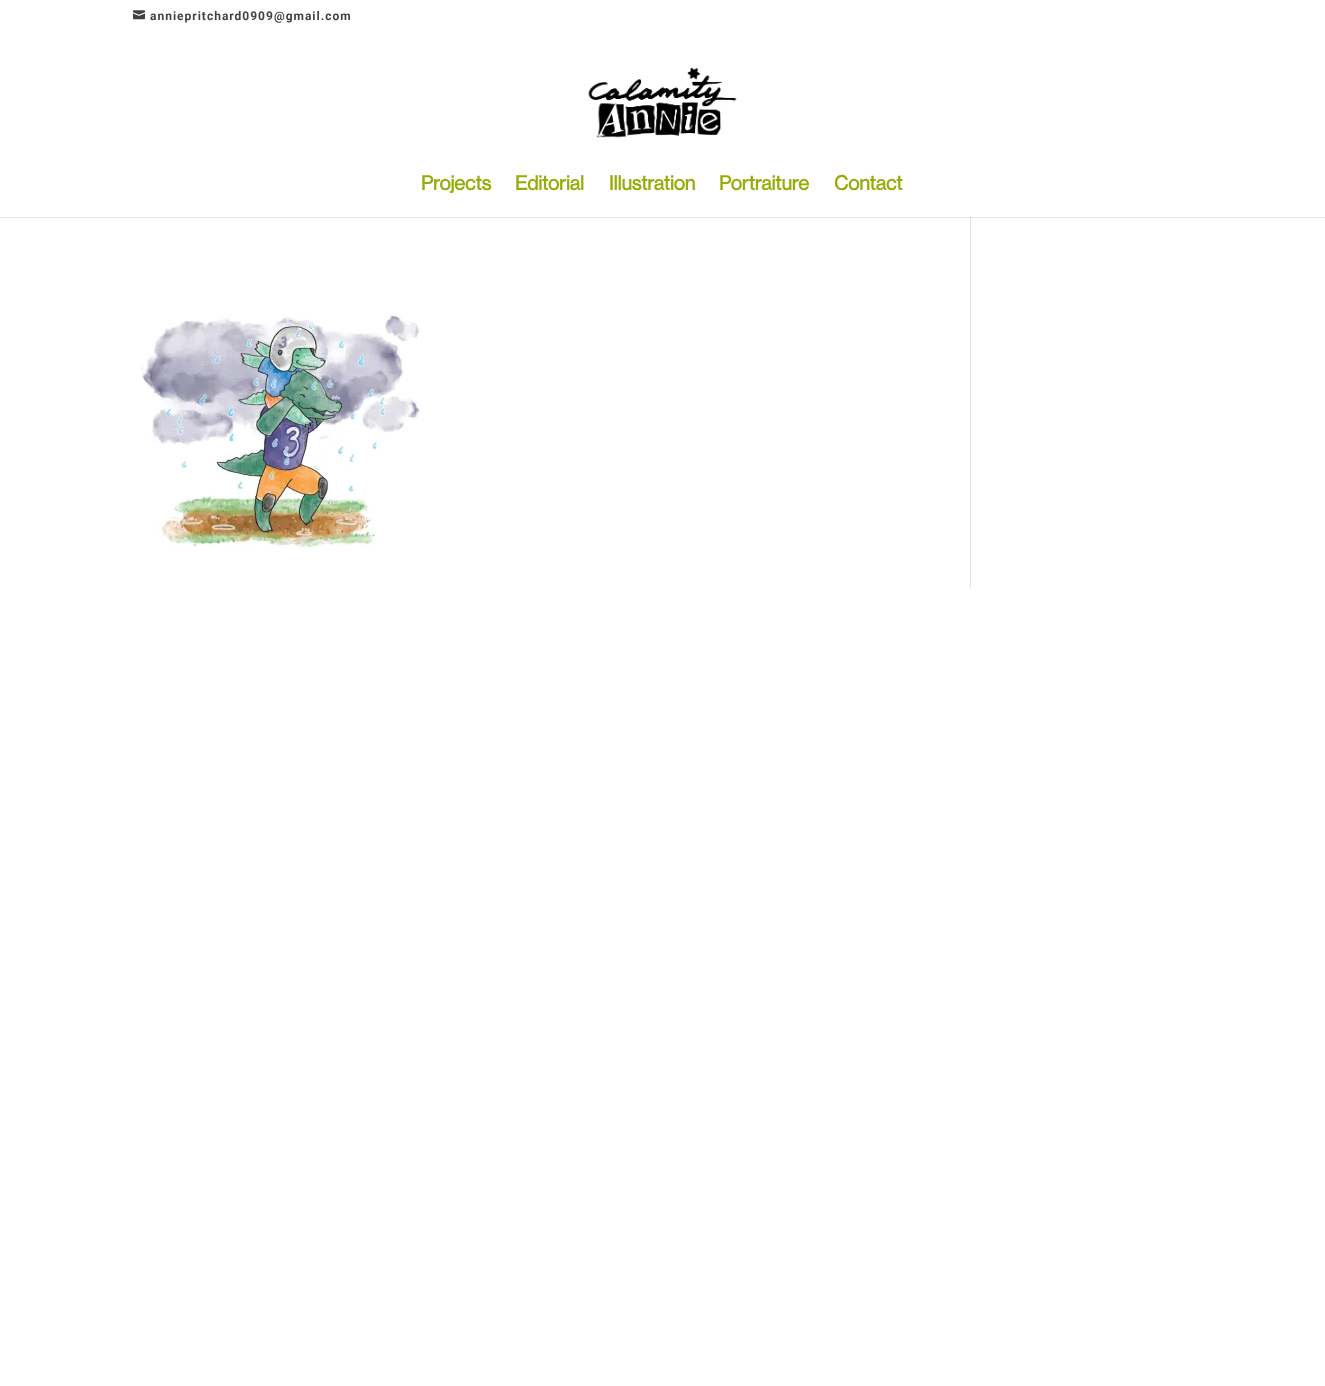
<svg xmlns="http://www.w3.org/2000/svg" xmlns:xlink="http://www.w3.org/1999/xlink" width="1325" height="1386" viewBox="0 0 1325 1386">
<style>
.cls-1{font:bold 12px Roboto;letter-spacing:1px;fill:#424242}
.cls-2{font:bold 20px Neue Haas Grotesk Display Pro;fill:#94ad08}
</style>
<rect width="100%" height="100%" fill="#ffffff"/>
<rect fill="#e6e6e6" x="0" y="217" width="1325" height="1"/>
<image xlink:href="image0.png" x="133" y="10" width="12" height="10"/>
<image xlink:href="image1.png" x="588" y="67" width="149" height="71"/>
<image xlink:href="image2.png" x="141" y="315" width="280" height="234"/>
<rect fill="#e2e2e2" x="970" y="217" width="1" height="371"/>
<rect fill="#cbcbcb" x="970" y="217" width="1" height="1"/>
<text class="cls-1" x="150" y="20">anniepritchard0909@gmail.com</text>
<text class="cls-2" x="421" y="190">Projects</text>
<text class="cls-2" x="515" y="190">Editorial</text>
<text class="cls-2" x="609" y="190">Illustration</text>
<text class="cls-2" x="719" y="190">Portraiture</text>
<text class="cls-2" x="834" y="190">Contact</text>
</svg>
